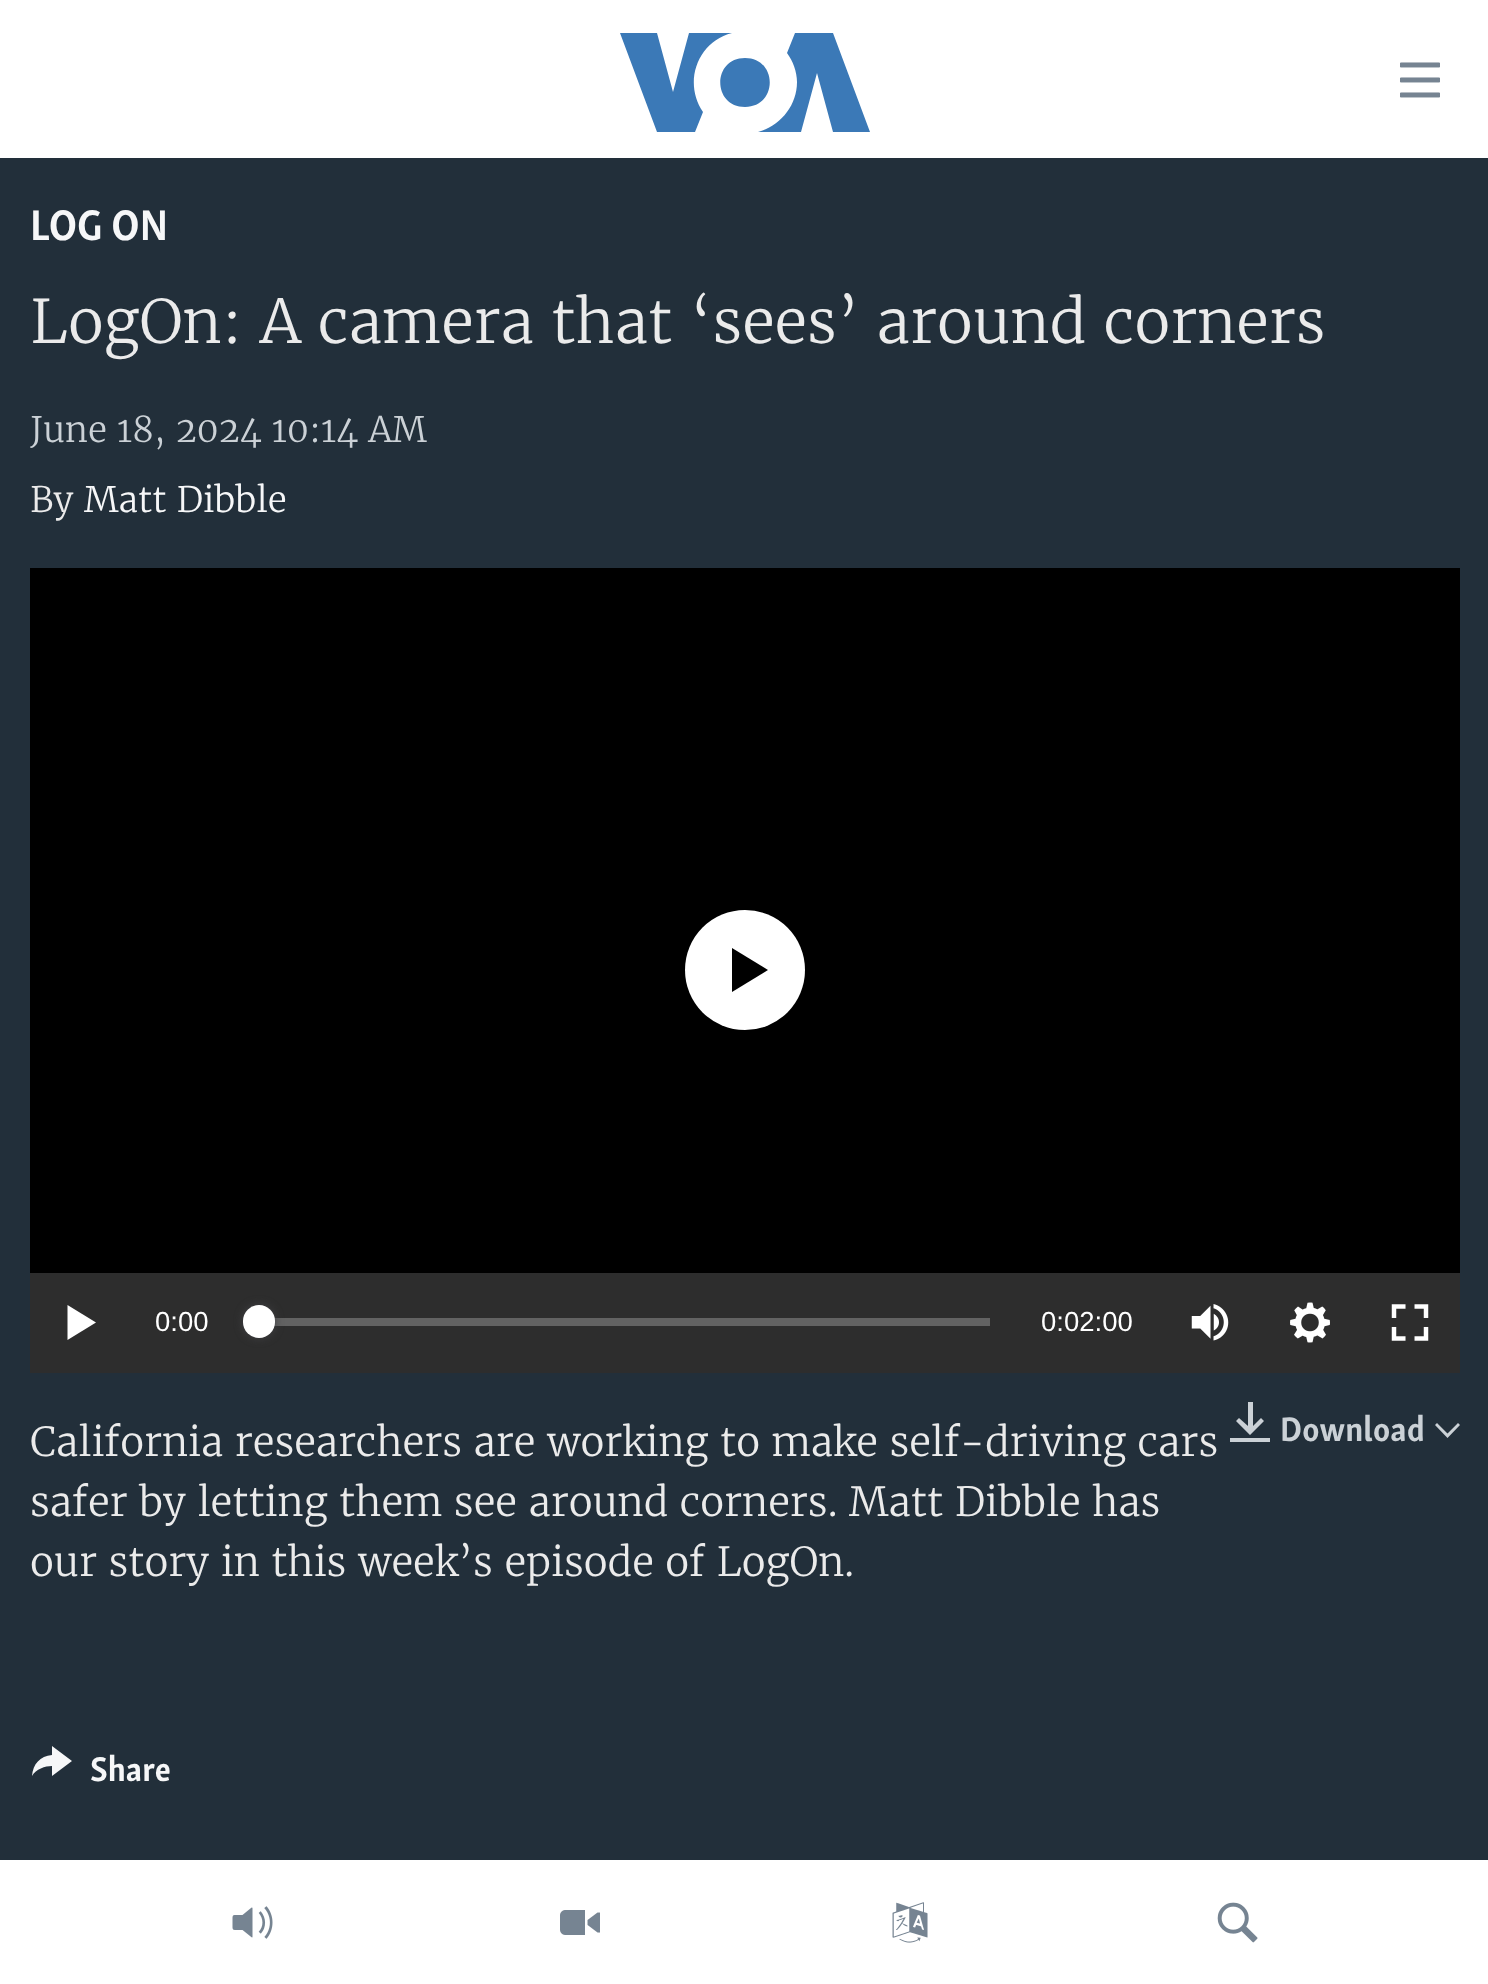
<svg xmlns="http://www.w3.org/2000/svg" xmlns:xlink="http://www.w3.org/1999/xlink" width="1488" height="1984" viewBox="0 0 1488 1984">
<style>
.cls-1{font:bold 44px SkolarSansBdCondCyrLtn;fill:#f6f7f8}
.cls-2{font:300 60px Merriweather;fill:#ebebeb}
.cls-3{font:300 35px Merriweather;fill:#cbd1d6}
.cls-4{font:300 35px Merriweather;fill:#ebebeb}
.cls-5{font:300 35px Merriweather;fill:#f6f7f8}
.cls-6{font:27.5px Liberation Sans;fill:#ffffff}
.cls-7{font:300 40px Merriweather;fill:#ebebeb}
.cls-8{font:bold 35px SkolarSansBdCondCyrLtn;fill:#cbd1d6}
.cls-9{font:bold 35px SkolarSansBdCondCyrLtn;fill:#f6f7f8}
</style>
<rect width="100%" height="100%" fill="#222f3a"/>
<rect fill="#ffffff" x="0" y="0" width="1488" height="158"/>
<path fill="#3b79b7" d="M703 112L695 132H657L620 33H657L673 92L689 33H732C697 42 683 83 703 112ZM745 58C712 58 712 107 745 107C778 107 778 58 745 58ZM797 82C797 106 780 126 758 132H801L817 73L833 132H870L833 33H795L787 53C793 61 797 72 797 82Z"/>
<image xlink:href="image0.png" x="1400" y="62" width="40" height="36"/>
<rect fill="#ffffff" x="0" y="1860" width="1488" height="124"/>
<image xlink:href="image1.png" x="232" y="1906" width="41" height="33"/>
<image xlink:href="image2.png" x="560" y="1910" width="40" height="25"/>
<image xlink:href="image3.png" x="892" y="1902" width="36" height="41"/>
<image xlink:href="image4.png" x="1217" y="1902" width="41" height="41"/>
<rect fill="#000000" x="30" y="568" width="1430" height="705"/>
<circle fill="#ffffff" cx="745" cy="970" r="60"/>
<path fill="#000000" d="M732 992L768 970L732 948Z"/>
<rect fill="#2d2d2d" x="30" y="1273" width="1430" height="100"/>
<path fill="#ffffff" d="M67.5 1340L96 1322.5L67.5 1305Z"/>
<rect fill="#626262" x="274" y="1318" width="716" height="8"/>
<rect fill="#414144" filter="blur(4px)" x="243" y="1305" width="32" height="33" rx="16"/>
<rect fill="#ffffff" x="243" y="1305" width="32" height="33" rx="16"/>
<image xlink:href="image5.png" x="1191" y="1304" width="38" height="37"/>
<image xlink:href="image6.png" x="1290" y="1302" width="40" height="41"/>
<image xlink:href="image7.png" x="1391" y="1304" width="38" height="37"/>
<path fill="#cbd1d6" d="M1270 1438V1442H1230V1438ZM1264 1421L1261 1418L1253 1426V1402H1248V1426L1239 1418L1236 1421L1250 1435Z"/>
<path fill="#cbd1d6" d="M1435 1425L1447.5 1438L1460 1425L1458 1423L1447.5 1433.5L1437 1423Z"/>
<path fill="#f6f7f8" d="M32 1776C33 1764 40 1756 52 1755V1746L72 1761L52 1776V1766C45 1766 36 1769 32 1776Z"/>
<text class="cls-1" x="30" y="240">LOG ON</text>
<text class="cls-2" x="30" y="343">LogOn: A camera that ‘sees’ around corners</text>
<text class="cls-3" x="30" y="442">June 18, 2024 10:14 AM</text>
<text class="cls-4" x="30" y="512">By</text>
<text class="cls-5" x="84" y="512">Matt Dibble</text>
<text class="cls-6" x="155" y="1331">0:00</text>
<text class="cls-6" x="1041" y="1331">0:02:00</text>
<text class="cls-7"><tspan x="30" y="1456">California researchers are working to make self-driving cars</tspan><tspan x="30" y="1516">safer by letting them see around corners. Matt Dibble has</tspan><tspan x="30" y="1576">our story in this week’s episode of LogOn.</tspan></text>
<text class="cls-8" x="1280" y="1441">Download</text>
<text class="cls-9" x="90" y="1781">Share</text>
</svg>
